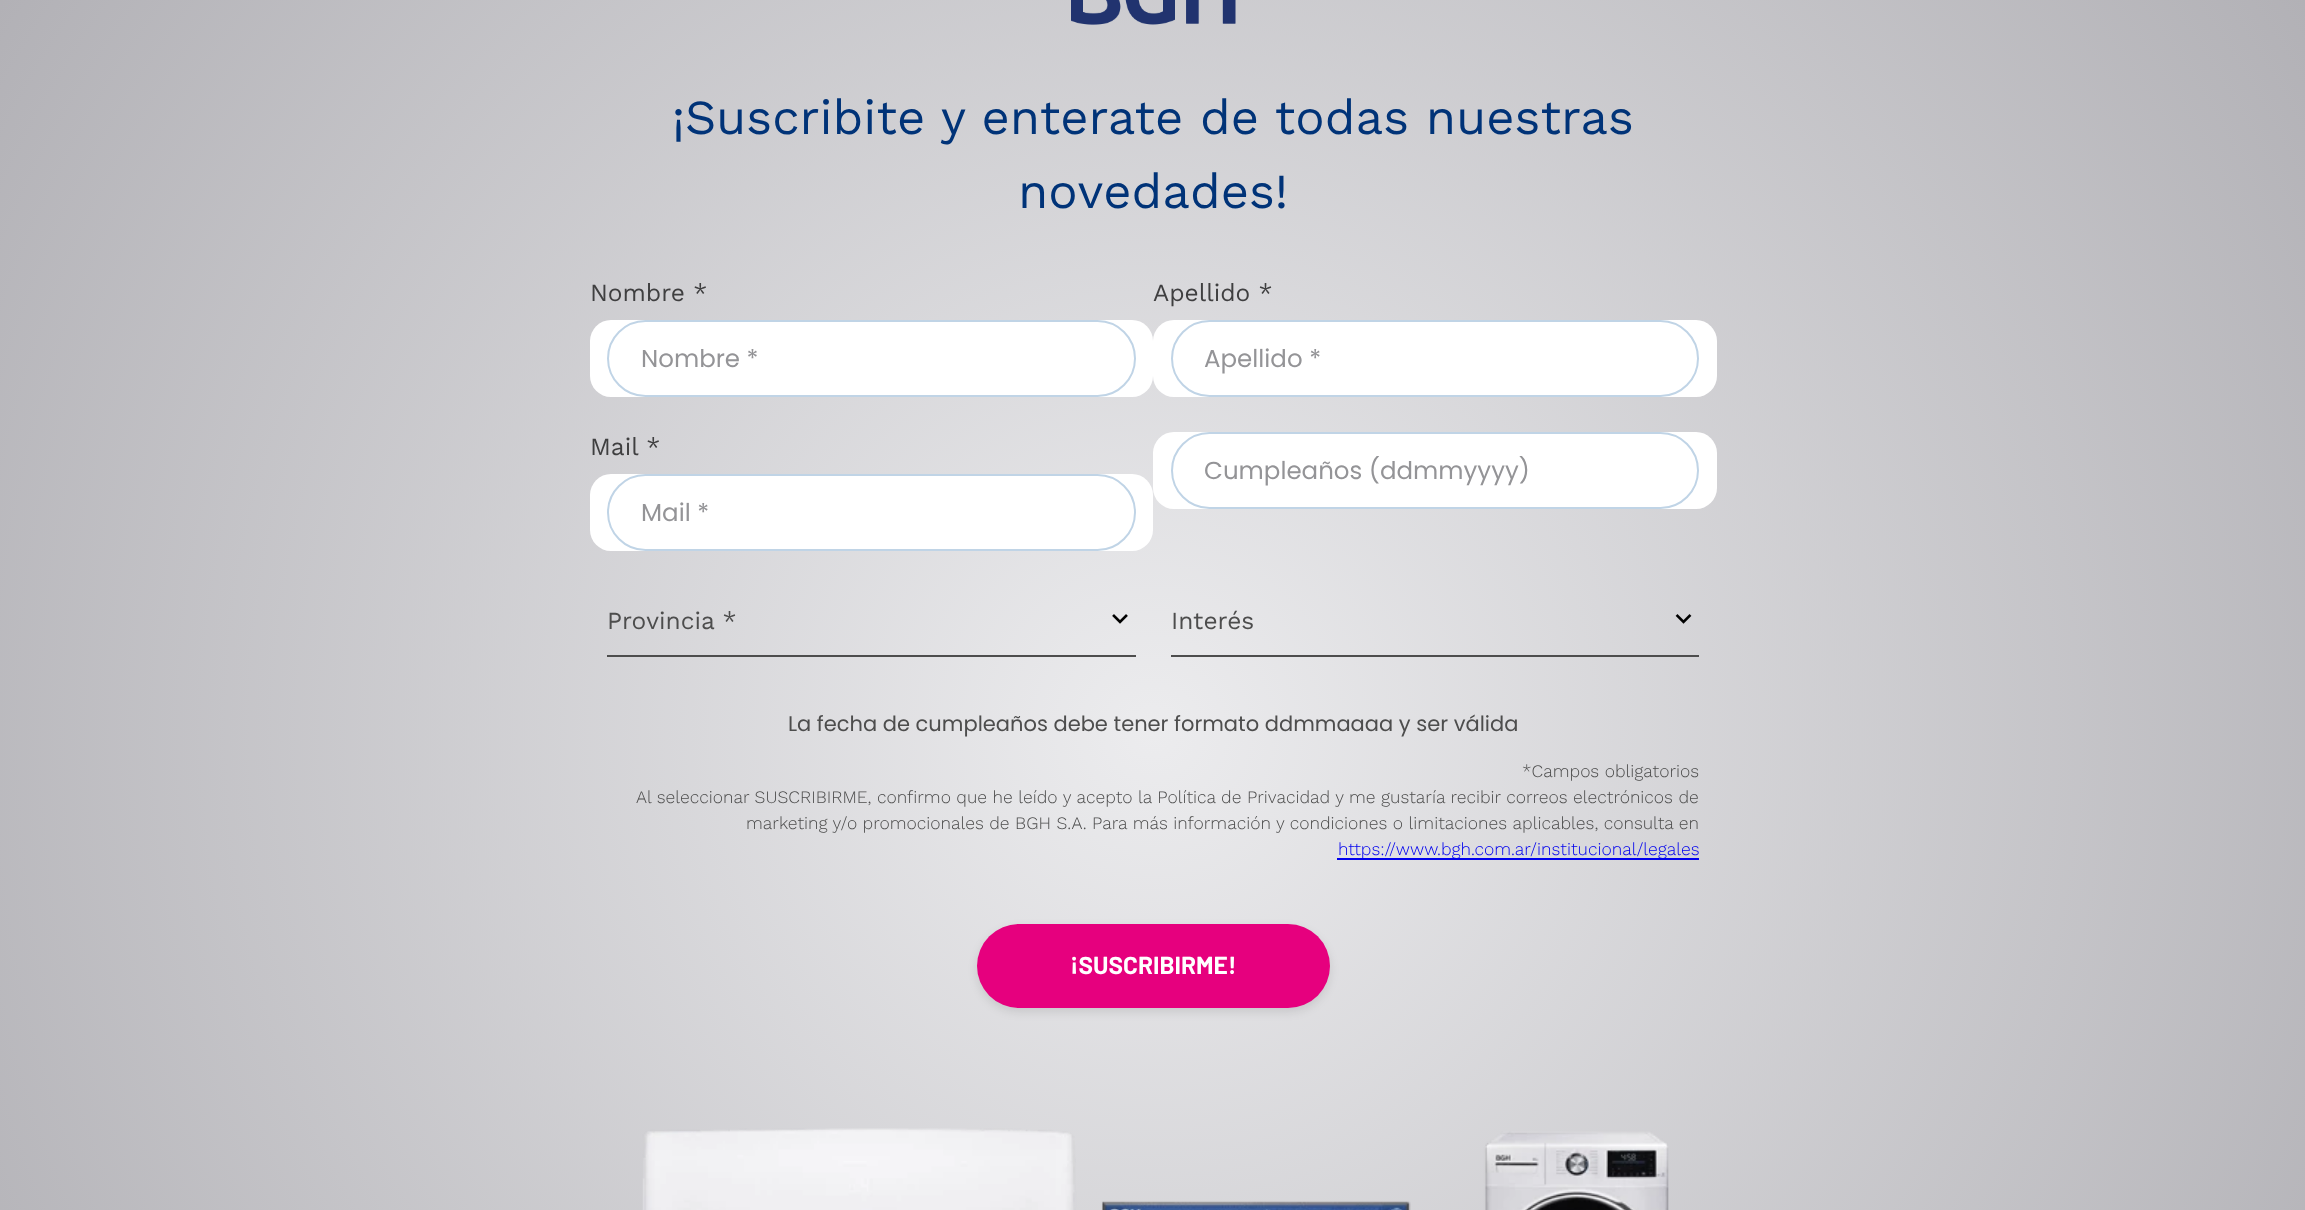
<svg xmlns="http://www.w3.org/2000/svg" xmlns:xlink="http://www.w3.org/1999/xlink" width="2305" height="1210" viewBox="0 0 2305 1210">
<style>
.cls-1{font:49px Work Sans;fill:#003378}
.cls-2{font:24.5px Work Sans;fill:#3f3f40}
.cls-3{font:24.5px Poppins;fill:#949497}
.cls-4{font:24.5px Work Sans;fill:#4d4d4d}
.cls-5{font:21px Poppins;fill:#4d4d4d}
.cls-6{font:300 17.5px Work Sans;fill:#4d4d4d}
.cls-7{font:300 17.5px Work Sans;fill:#0000ee}
.cls-8{font:bold 24.5px Barlow;fill:#ffffff}
</style>
<defs>
<radialGradient id="g1" gradientUnits="userSpaceOnUse" cx="1153" cy="732" r="1388"><stop offset="0" stop-color="#ececee"/><stop offset="1" stop-color="#b1b0b5"/></radialGradient>
</defs>
<rect width="100%" height="100%" fill="#ffffff"/>
<rect fill="url(#g1)" x="0" y="0" width="2305" height="1210"/>
<image xlink:href="image0.png" x="1071" y="0" width="165" height="25"/>
<rect fill="#ffffff" x="590" y="320" width="563" height="77" rx="21"/>
<rect fill="none" stroke="#c0d4e6" stroke-width="2" x="608" y="321" width="527" height="75" rx="37.5"/>
<rect fill="#ffffff" x="1153" y="320" width="564" height="77" rx="21"/>
<rect fill="none" stroke="#c0d4e6" stroke-width="2" x="1172" y="321" width="526" height="75" rx="37.5"/>
<rect fill="#ffffff" x="590" y="474" width="563" height="77" rx="21"/>
<rect fill="none" stroke="#c0d4e6" stroke-width="2" x="608" y="475" width="527" height="75" rx="37.5"/>
<rect fill="#ffffff" x="1153" y="432" width="564" height="77" rx="21"/>
<rect fill="none" stroke="#c0d4e6" stroke-width="2" x="1172" y="433" width="526" height="75" rx="37.5"/>
<rect fill="#4d4d4d" x="607" y="655" width="529" height="2"/>
<image xlink:href="image1.png" x="1112" y="614" width="16" height="10"/>
<rect fill="#4d4d4d" x="1171" y="655" width="528" height="2"/>
<image xlink:href="image2.png" x="1675" y="614" width="17" height="10"/>
<rect fill="#0000ee" x="1337" y="858" width="362" height="2"/>
<rect fill="#000000" fill-opacity="0.1" filter="blur(5px)" x="977" y="928" width="353" height="84" rx="42"/>
<rect fill="#e6007e" x="977" y="924" width="353" height="84" rx="42"/>
<image xlink:href="image3.png" x="642" y="1128" width="1027" height="82"/>
<text class="cls-1" x="672" y="134">¡Suscribite y enterate de todas nuestras</text>
<text class="cls-1" x="1018" y="208">novedades!</text>
<text class="cls-2" x="590" y="301">Nombre *</text>
<text class="cls-3" x="641" y="367">Nombre *</text>
<text class="cls-2" x="1153" y="301">Apellido *</text>
<text class="cls-3" x="1204" y="367">Apellido *</text>
<text class="cls-2" x="590" y="455">Mail *</text>
<text class="cls-3" x="641" y="521">Mail *</text>
<text class="cls-3" x="1204" y="479">Cumpleaños (ddmmyyyy)</text>
<text class="cls-4" x="607" y="629">Provincia *</text>
<text class="cls-4" x="1171" y="629">Interés</text>
<text class="cls-5" x="788" y="731">La fecha de cumpleaños debe tener formato ddmmaaaa y ser válida</text>
<text class="cls-6" x="1522" y="777">*Campos obligatorios</text>
<text class="cls-6" x="636" y="803">Al seleccionar SUSCRIBIRME, confirmo que he leído y acepto la Política de Privacidad y me gustaría recibir correos electrónicos de</text>
<text class="cls-6" x="746" y="829">marketing y/o promocionales de BGH S.A. Para más información y condiciones o limitaciones aplicables, consulta en</text>
<text class="cls-7" x="1338" y="855">https://www.bgh.com.ar/institucional/legales</text>
<text class="cls-8" x="1070" y="974">¡SUSCRIBIRME!</text>
</svg>
